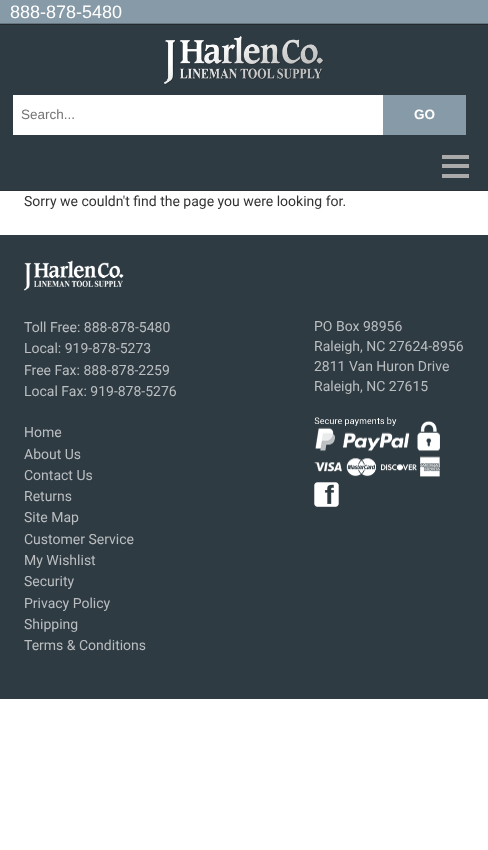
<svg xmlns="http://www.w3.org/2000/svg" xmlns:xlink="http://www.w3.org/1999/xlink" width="488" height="850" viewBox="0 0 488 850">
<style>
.cls-1{font:18px Liberation Sans;fill:#ffffff}
.cls-2{font:13.5px Liberation Sans;fill:#757575}
.cls-3{font:bold 13.5px Liberation Sans;fill:#ffffff}
.cls-4{font:14px Roboto;fill:#333333}
.cls-5{font:14px Roboto;fill:#babec1}
</style>
<defs>
<linearGradient id="g1" gradientUnits="userSpaceOnUse" x1="244" y1="0" x2="244" y2="25"><stop offset="0.92" stop-color="#879aa7"/><stop offset="0.99" stop-color="#15181a"/></linearGradient>
</defs>
<rect width="100%" height="100%" fill="#ffffff"/>
<rect fill="url(#g1)" x="0" y="0" width="488" height="25"/>
<rect fill="#2f3b42" x="0" y="25" width="488" height="165"/>
<image xlink:href="image0.png" x="164" y="36" width="160" height="49"/>
<rect fill="#ffffff" x="13" y="95" width="370" height="40"/>
<rect fill="#879aa7" x="383" y="95" width="83" height="40"/>
<rect fill="#2b3337" x="0" y="190" width="488" height="1"/>
<rect fill="#aaaaaa" x="442" y="174" width="27" height="4"/>
<rect fill="#aaaaaa" x="442" y="164" width="27" height="4"/>
<rect fill="#aaaaaa" x="442" y="155" width="27" height="4"/>
<rect fill="#2f3b42" x="0" y="235" width="488" height="464"/>
<image xlink:href="image1.png" x="24" y="260" width="100" height="31"/>
<image xlink:href="image2.png" x="314" y="417" width="126" height="60"/>
<image xlink:href="image3.png" x="314" y="482" width="25" height="25"/>
<text class="cls-1" x="10" y="18">888-878-5480</text>
<text class="cls-2" x="21" y="119">Search...</text>
<text class="cls-3" x="414" y="119">GO</text>
<text class="cls-4" x="24" y="206">Sorry we couldn't find the page you were looking for.</text>
<text class="cls-5"><tspan x="24" y="332">Toll Free: 888-878-5480</tspan><tspan x="24" y="353">Local: 919-878-5273</tspan><tspan x="24" y="375">Free Fax: 888-878-2259</tspan><tspan x="24" y="396">Local Fax: 919-878-5276</tspan></text>
<text class="cls-5"><tspan x="24" y="437">Home</tspan><tspan x="24" y="459">About Us</tspan><tspan x="24" y="480">Contact Us</tspan><tspan x="24" y="501">Returns</tspan><tspan x="24" y="522">Site Map</tspan><tspan x="24" y="544">Customer Service</tspan><tspan x="24" y="565">My Wishlist</tspan><tspan x="24" y="586">Security</tspan><tspan x="24" y="608">Privacy Policy</tspan><tspan x="24" y="629">Shipping</tspan><tspan x="24" y="650">Terms &amp; Conditions</tspan></text>
<text class="cls-5"><tspan x="314" y="331">PO Box 98956</tspan><tspan x="314" y="351">Raleigh, NC 27624-8956</tspan><tspan x="314" y="371">2811 Van Huron Drive</tspan><tspan x="314" y="391">Raleigh, NC 27615</tspan></text>
</svg>
